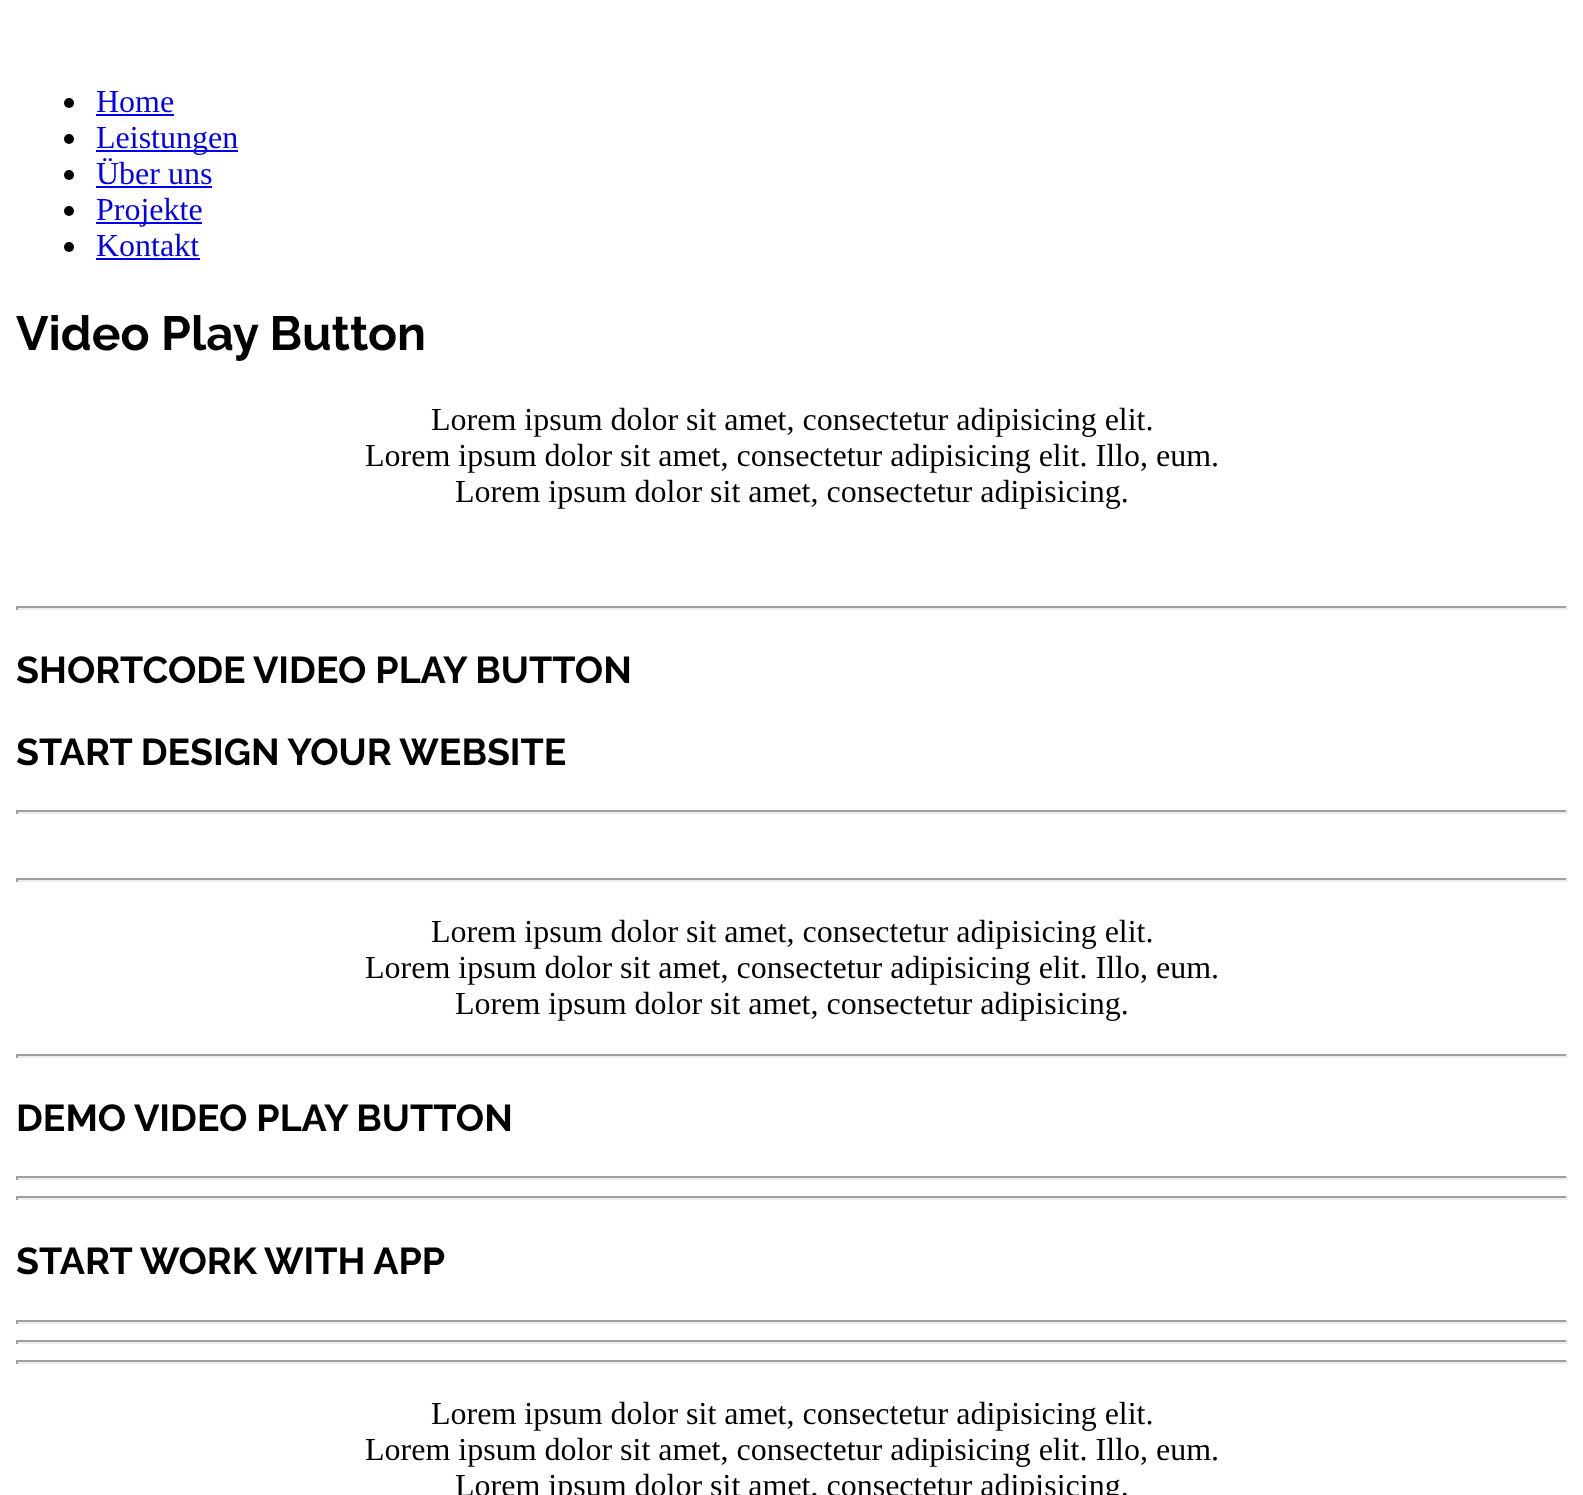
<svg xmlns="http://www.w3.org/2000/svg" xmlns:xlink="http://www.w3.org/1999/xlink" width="1583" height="1495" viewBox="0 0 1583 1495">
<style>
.cls-1{font:32px Liberation Serif;fill:#0000ee}
.cls-2{font:bold 48px Raleway;fill:#000000}
.cls-3{font:32px Liberation Serif;fill:#000000}
.cls-4{font:bold 37.5px Raleway;fill:#000000}
</style>
<rect width="100%" height="100%" fill="#ffffff"/>
<circle fill="#000000" cx="69" cy="103" r="5"/>
<rect fill="#0000ee" x="96" y="114" width="78" height="2"/>
<circle fill="#000000" cx="69" cy="139" r="5"/>
<rect fill="#0000ee" x="96" y="150" width="142" height="2"/>
<circle fill="#000000" cx="69" cy="175" r="5"/>
<rect fill="#0000ee" x="96" y="186" width="116" height="2"/>
<circle fill="#000000" cx="69" cy="211" r="5"/>
<rect fill="#0000ee" x="96" y="222" width="106" height="2"/>
<circle fill="#000000" cx="69" cy="247" r="5"/>
<rect fill="#0000ee" x="96" y="258" width="104" height="2"/>
<rect fill="#9f9f9f" x="16" y="606" width="1552" height="2"/>
<rect fill="#eeeeee" x="1566" y="606" width="2" height="4"/>
<rect fill="#eeeeee" x="16" y="608" width="1552" height="2"/>
<rect fill="#9f9f9f" x="16" y="606" width="2" height="4"/>
<rect fill="#9f9f9f" x="16" y="810" width="1552" height="2"/>
<rect fill="#eeeeee" x="1566" y="810" width="2" height="4"/>
<rect fill="#eeeeee" x="16" y="812" width="1552" height="2"/>
<rect fill="#9f9f9f" x="16" y="810" width="2" height="4"/>
<rect fill="#9f9f9f" x="16" y="878" width="1552" height="2"/>
<rect fill="#eeeeee" x="1566" y="878" width="2" height="4"/>
<rect fill="#eeeeee" x="16" y="880" width="1552" height="2"/>
<rect fill="#9f9f9f" x="16" y="878" width="2" height="4"/>
<rect fill="#9f9f9f" x="16" y="1054" width="1552" height="2"/>
<rect fill="#eeeeee" x="1566" y="1054" width="2" height="4"/>
<rect fill="#eeeeee" x="16" y="1056" width="1552" height="2"/>
<rect fill="#9f9f9f" x="16" y="1054" width="2" height="4"/>
<rect fill="#9f9f9f" x="16" y="1176" width="1552" height="2"/>
<rect fill="#eeeeee" x="1566" y="1176" width="2" height="4"/>
<rect fill="#eeeeee" x="16" y="1178" width="1552" height="2"/>
<rect fill="#9f9f9f" x="16" y="1176" width="2" height="4"/>
<rect fill="#9f9f9f" x="16" y="1196" width="1552" height="2"/>
<rect fill="#eeeeee" x="1566" y="1196" width="2" height="4"/>
<rect fill="#eeeeee" x="16" y="1198" width="1552" height="2"/>
<rect fill="#9f9f9f" x="16" y="1196" width="2" height="4"/>
<rect fill="#9f9f9f" x="16" y="1320" width="1552" height="2"/>
<rect fill="#eeeeee" x="1566" y="1320" width="2" height="4"/>
<rect fill="#eeeeee" x="16" y="1322" width="1552" height="2"/>
<rect fill="#9f9f9f" x="16" y="1320" width="2" height="4"/>
<rect fill="#9f9f9f" x="16" y="1340" width="1552" height="2"/>
<rect fill="#eeeeee" x="1566" y="1340" width="2" height="4"/>
<rect fill="#eeeeee" x="16" y="1342" width="1552" height="2"/>
<rect fill="#9f9f9f" x="16" y="1340" width="2" height="4"/>
<rect fill="#9f9f9f" x="16" y="1360" width="1552" height="2"/>
<rect fill="#eeeeee" x="1566" y="1360" width="2" height="4"/>
<rect fill="#eeeeee" x="16" y="1362" width="1552" height="2"/>
<rect fill="#9f9f9f" x="16" y="1360" width="2" height="4"/>
<text class="cls-1"><tspan x="96" y="112">Home</tspan><tspan x="96" y="148">Leistungen</tspan><tspan x="96" y="184">Über uns</tspan><tspan x="96" y="220">Projekte</tspan><tspan x="96" y="256">Kontakt</tspan></text>
<text class="cls-2" x="16" y="350">Video Play Button</text>
<text class="cls-3" x="431" y="430">Lorem ipsum dolor sit amet, consectetur adipisicing elit.</text>
<text class="cls-3" x="365" y="466">Lorem ipsum dolor sit amet, consectetur adipisicing elit. Illo, eum.</text>
<text class="cls-3" x="455" y="502">Lorem ipsum dolor sit amet, consectetur adipisicing.</text>
<text class="cls-4" x="16" y="683">SHORTCODE</text>
<text class="cls-4" x="253" y="683">VIDEO PLAY BUTTON</text>
<text class="cls-4" x="16" y="765">START DESIGN YOUR WEBSITE</text>
<text class="cls-3" x="431" y="942">Lorem ipsum dolor sit amet, consectetur adipisicing elit.</text>
<text class="cls-3" x="365" y="978">Lorem ipsum dolor sit amet, consectetur adipisicing elit. Illo, eum.</text>
<text class="cls-3" x="455" y="1014">Lorem ipsum dolor sit amet, consectetur adipisicing.</text>
<text class="cls-4" x="16" y="1131">DEMO</text>
<text class="cls-4" x="134" y="1131">VIDEO PLAY BUTTON</text>
<text class="cls-4" x="16" y="1274">START</text>
<text class="cls-4" x="140" y="1274">WORK WITH APP</text>
<text class="cls-3" x="431" y="1424">Lorem ipsum dolor sit amet, consectetur adipisicing elit.</text>
<text class="cls-3" x="365" y="1460">Lorem ipsum dolor sit amet, consectetur adipisicing elit. Illo, eum.</text>
<text class="cls-3" x="455" y="1496">Lorem ipsum dolor sit amet, consectetur adipisicing.</text>
</svg>
